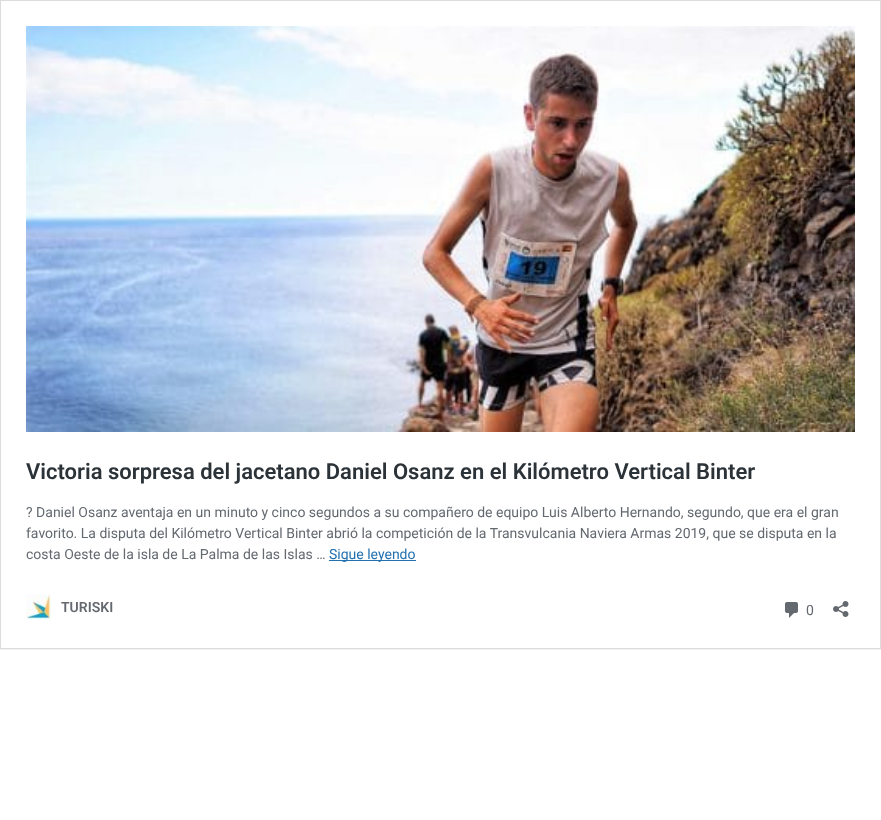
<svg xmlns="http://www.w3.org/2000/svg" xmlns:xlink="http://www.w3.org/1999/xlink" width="881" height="820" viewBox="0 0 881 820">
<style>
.cls-1{font:600 22px Roboto;fill:#2c3338}
.cls-2{font:14px Roboto;fill:#646970}
.cls-3{font:14px Roboto;fill:#2271b1}
.cls-4{font:600 14px Roboto;fill:#646970}
</style>
<defs>
<clipPath id="clip1"><rect x="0" y="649" width="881" height="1"/></clipPath>
</defs>
<rect width="100%" height="100%" fill="#ffffff"/>
<g clip-path="url(#clip1)">
<rect fill="#000000" fill-opacity="0.05" filter="blur(0.5px)" x="0" y="1" width="881" height="649"/>
</g>
<rect fill="none" stroke="#dcdcde" x="0.5" y="0.5" width="880" height="648"/>
<image xlink:href="image0.png" x="26" y="26" width="829" height="406"/>
<rect fill="#2271b1" x="329" y="560" width="87" height="1"/>
<image xlink:href="image1.png" x="26" y="594" width="25" height="26"/>
<image xlink:href="image2.png" x="785" y="602" width="13" height="16"/>
<image xlink:href="image3.png" x="833" y="601" width="16" height="16"/>
<text class="cls-1" x="26" y="479">Victoria sorpresa del jacetano Daniel Osanz en el Kilómetro Vertical Binter</text>
<text class="cls-2"><tspan x="26" y="517">? Daniel Osanz aventaja en un minuto y cinco segundos a su compañero de equipo Luis Alberto Hernando, segundo, que era el gran</tspan><tspan x="26" y="538">favorito. La disputa del Kilómetro Vertical Binter abrió la competición de la Transvulcania Naviera Armas 2019, que se disputa en la</tspan><tspan x="26" y="559">costa Oeste de la isla de La Palma de las Islas …</tspan></text>
<text class="cls-3" x="329" y="559">Sigue leyendo</text>
<text class="cls-4" x="61" y="612">TURISKI</text>
<text class="cls-2" x="806" y="615">0</text>
</svg>
